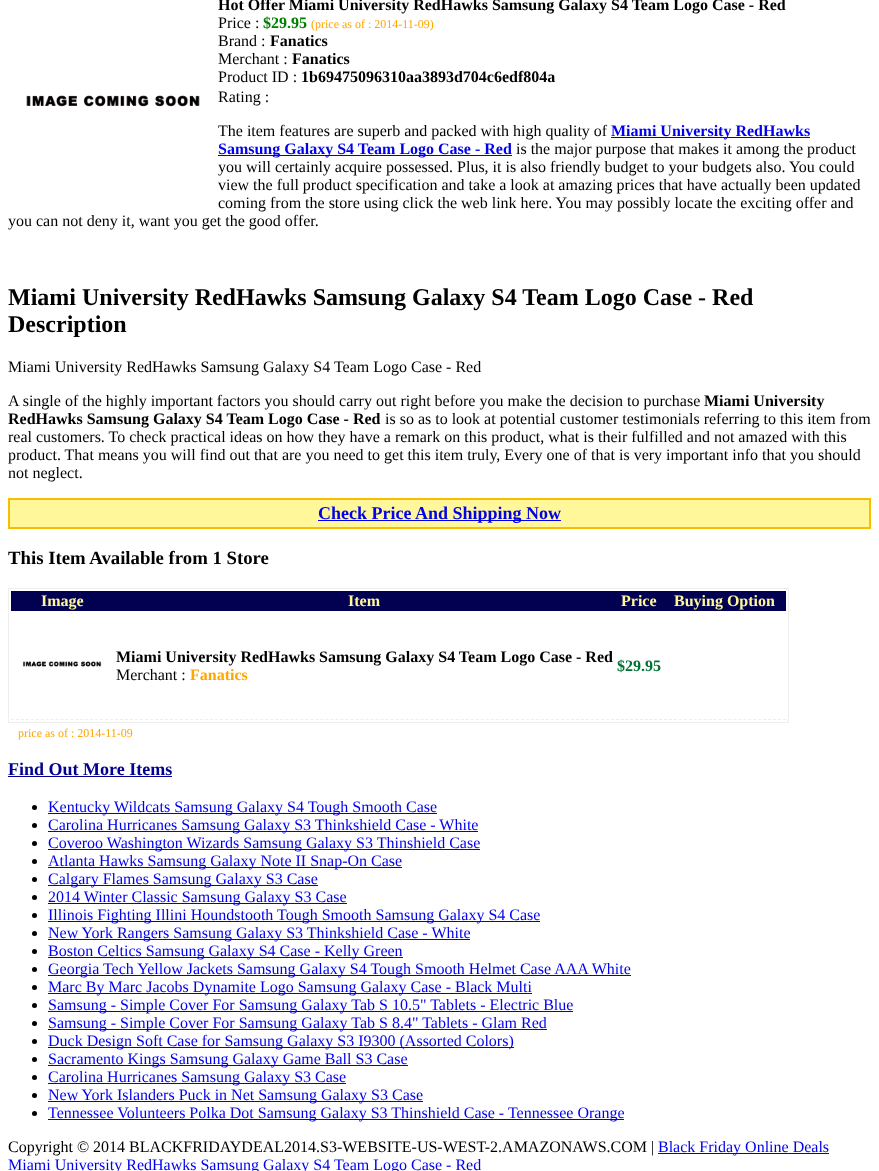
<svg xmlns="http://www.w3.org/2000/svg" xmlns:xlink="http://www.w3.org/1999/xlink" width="879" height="1171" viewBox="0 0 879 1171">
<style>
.cls-1{font:bold 16px Liberation Serif;fill:#000000}
.cls-2{font:16px Liberation Serif;fill:#000000}
.cls-3{font:bold 16px Liberation Serif;fill:#008000}
.cls-4{font:12px Liberation Serif;fill:#ffa500}
.cls-5{font:bold 16px Liberation Serif;fill:#0000ee}
.cls-6{font:bold 24px Liberation Serif;fill:#000000}
.cls-7{font:bold 18px Liberation Serif;fill:#0000ee}
.cls-8{font:bold 18.75px Liberation Serif;fill:#000000}
.cls-9{font:bold 16px Liberation Serif;fill:#fff799}
.cls-10{font:bold 16px Liberation Serif;fill:#ffa500}
.cls-11{font:bold 16px Liberation Serif;fill:#007236}
.cls-12{font:bold 18px Liberation Serif;fill:#020090}
.cls-13{font:16px Liberation Serif;fill:#0000ee}
</style>
<rect width="100%" height="100%" fill="#ffffff"/>
<image xlink:href="image0.png" x="26" y="95" width="174" height="12"/>
<rect fill="#0000ee" x="611" y="137" width="199" height="1"/>
<rect fill="#0000ee" x="218" y="155" width="294" height="1"/>
<rect fill="#fff799" stroke="#fabe00" stroke-width="2" x="9" y="499" width="861" height="29"/>
<rect fill="#0000ee" x="318" y="520" width="243" height="1"/>
<rect fill="none" stroke="#eeeeee" x="8.5" y="588.5" width="780" height="134"/>
<rect fill="#020050" x="11" y="591" width="775" height="20"/>
<path fill="none" stroke="#eeeeee" stroke-dasharray="3 1.95" d="M11 719.5H113"/>
<image xlink:href="image1.png" x="22" y="661" width="80" height="6"/>
<path fill="none" stroke="#eeeeee" stroke-dasharray="3 2.01" d="M115 719.5H614"/>
<path fill="none" stroke="#ebebeb" stroke-dasharray="3 1.78" d="M616 719.5H662"/>
<path fill="none" stroke="#eeeeee" stroke-dasharray="3 1.96" d="M664 719.5H786"/>
<rect fill="#020090" x="8" y="776" width="164" height="1"/>
<circle fill="#000000" cx="34.5" cy="807.5" r="2.5"/>
<rect fill="#0000ee" x="48" y="813" width="389" height="1"/>
<circle fill="#000000" cx="34.5" cy="825.5" r="2.5"/>
<rect fill="#0000ee" x="48" y="831" width="430" height="1"/>
<circle fill="#000000" cx="34.5" cy="843.5" r="2.5"/>
<rect fill="#0000ee" x="48" y="849" width="432" height="1"/>
<circle fill="#000000" cx="34.5" cy="861.5" r="2.5"/>
<rect fill="#0000ee" x="48" y="867" width="354" height="1"/>
<circle fill="#000000" cx="34.5" cy="879.5" r="2.5"/>
<rect fill="#0000ee" x="48" y="885" width="270" height="1"/>
<circle fill="#000000" cx="34.5" cy="897.5" r="2.5"/>
<rect fill="#0000ee" x="48" y="903" width="299" height="1"/>
<circle fill="#000000" cx="34.5" cy="915.5" r="2.5"/>
<rect fill="#0000ee" x="48" y="921" width="492" height="1"/>
<circle fill="#000000" cx="34.5" cy="933.5" r="2.5"/>
<rect fill="#0000ee" x="48" y="939" width="422" height="1"/>
<circle fill="#000000" cx="34.5" cy="951.5" r="2.5"/>
<rect fill="#0000ee" x="48" y="957" width="355" height="1"/>
<circle fill="#000000" cx="34.5" cy="969.5" r="2.5"/>
<rect fill="#0000ee" x="48" y="975" width="583" height="1"/>
<circle fill="#000000" cx="34.5" cy="987.5" r="2.5"/>
<rect fill="#0000ee" x="48" y="993" width="484" height="1"/>
<circle fill="#000000" cx="34.5" cy="1005.5" r="2.5"/>
<rect fill="#0000ee" x="48" y="1011" width="525" height="1"/>
<circle fill="#000000" cx="34.5" cy="1023.5" r="2.5"/>
<rect fill="#0000ee" x="48" y="1029" width="499" height="1"/>
<circle fill="#000000" cx="34.5" cy="1041.5" r="2.5"/>
<rect fill="#0000ee" x="48" y="1047" width="466" height="1"/>
<circle fill="#000000" cx="34.5" cy="1059.5" r="2.5"/>
<rect fill="#0000ee" x="48" y="1065" width="360" height="1"/>
<circle fill="#000000" cx="34.5" cy="1077.5" r="2.5"/>
<rect fill="#0000ee" x="48" y="1083" width="298" height="1"/>
<circle fill="#000000" cx="34.5" cy="1095.5" r="2.5"/>
<rect fill="#0000ee" x="48" y="1101" width="375" height="1"/>
<circle fill="#000000" cx="34.5" cy="1113.5" r="2.5"/>
<rect fill="#0000ee" x="48" y="1119" width="576" height="1"/>
<rect fill="#0000ee" x="658" y="1153" width="171" height="1"/>
<text class="cls-1" x="218" y="10">Hot Offer Miami University RedHawks Samsung Galaxy S4 Team Logo Case - Red</text>
<text class="cls-2" x="218" y="28">Price :</text>
<text class="cls-3" x="263" y="28">$29.95</text>
<text class="cls-4" x="311" y="28">(price as of : 2014-11-09)</text>
<text class="cls-2" x="218" y="46">Brand :</text>
<text class="cls-1" x="270" y="46">Fanatics</text>
<text class="cls-2" x="218" y="64">Merchant :</text>
<text class="cls-1" x="292" y="64">Fanatics</text>
<text class="cls-2" x="218" y="82">Product ID :</text>
<text class="cls-1" x="301" y="82">1b69475096310aa3893d704c6edf804a</text>
<text class="cls-2" x="218" y="102">Rating :</text>
<text class="cls-2" x="218" y="136">The item features are superb and packed with high quality of</text>
<text class="cls-5" x="611" y="136">Miami University RedHawks</text>
<text class="cls-5" x="218" y="154">Samsung Galaxy S4 Team Logo Case - Red</text>
<text class="cls-2" x="516" y="154">is the major purpose that makes it among the product</text>
<text class="cls-2"><tspan x="218" y="172">you will certainly acquire possessed. Plus, it is also friendly budget to your budgets also. You could</tspan><tspan x="218" y="190">view the full product specification and take a look at amazing prices that have actually been updated</tspan><tspan x="218" y="208">coming from the store using click the web link here. You may possibly locate the exciting offer and</tspan></text>
<text class="cls-2" x="8" y="226">you can not deny it, want you get the good offer.</text>
<text class="cls-6"><tspan x="8" y="305">Miami University RedHawks Samsung Galaxy S4 Team Logo Case - Red</tspan><tspan x="8" y="332">Description</tspan></text>
<text class="cls-2" x="8" y="372">Miami University RedHawks Samsung Galaxy S4 Team Logo Case - Red</text>
<text class="cls-2" x="8" y="406">A single of the highly important factors you should carry out right before you make the decision to purchase</text>
<text class="cls-1" x="704" y="406">Miami University</text>
<text class="cls-1" x="8" y="424">RedHawks Samsung Galaxy S4 Team Logo Case - Red</text>
<text class="cls-2" x="385" y="424">is so as to look at potential customer testimonials referring to this item from</text>
<text class="cls-2"><tspan x="8" y="442">real customers. To check practical ideas on how they have a remark on this product, what is their fulfilled and not amazed with this</tspan><tspan x="8" y="460">product. That means you will find out that are you need to get this item truly, Every one of that is very important info that you should</tspan><tspan x="8" y="478">not neglect.</tspan></text>
<text class="cls-7" x="318" y="519">Check Price And Shipping Now</text>
<text class="cls-8" x="8" y="564">This Item Available from 1 Store</text>
<text class="cls-9" x="41" y="606">Image</text>
<text class="cls-9" x="348" y="606">Item</text>
<text class="cls-9" x="621" y="606">Price</text>
<text class="cls-9" x="674" y="606">Buying Option</text>
<text class="cls-1" x="116" y="662">Miami University RedHawks Samsung Galaxy S4 Team Logo Case - Red</text>
<text class="cls-2" x="116" y="680">Merchant :</text>
<text class="cls-10" x="190" y="680">Fanatics</text>
<text class="cls-11" x="617" y="671">$29.95</text>
<text class="cls-4" x="18" y="737">price as of : 2014-11-09</text>
<text class="cls-12" x="8" y="775">Find Out More Items</text>
<text class="cls-13"><tspan x="48" y="812">Kentucky Wildcats Samsung Galaxy S4 Tough Smooth Case</tspan><tspan x="48" y="830">Carolina Hurricanes Samsung Galaxy S3 Thinkshield Case - White</tspan><tspan x="48" y="848">Coveroo Washington Wizards Samsung Galaxy S3 Thinshield Case</tspan><tspan x="48" y="866">Atlanta Hawks Samsung Galaxy Note II Snap-On Case</tspan><tspan x="48" y="884">Calgary Flames Samsung Galaxy S3 Case</tspan><tspan x="48" y="902">2014 Winter Classic Samsung Galaxy S3 Case</tspan><tspan x="48" y="920">Illinois Fighting Illini Houndstooth Tough Smooth Samsung Galaxy S4 Case</tspan><tspan x="48" y="938">New York Rangers Samsung Galaxy S3 Thinkshield Case - White</tspan><tspan x="48" y="956">Boston Celtics Samsung Galaxy S4 Case - Kelly Green</tspan><tspan x="48" y="974">Georgia Tech Yellow Jackets Samsung Galaxy S4 Tough Smooth Helmet Case AAA White</tspan><tspan x="48" y="992">Marc By Marc Jacobs Dynamite Logo Samsung Galaxy Case - Black Multi</tspan><tspan x="48" y="1010">Samsung - Simple Cover For Samsung Galaxy Tab S 10.5" Tablets - Electric Blue</tspan><tspan x="48" y="1028">Samsung - Simple Cover For Samsung Galaxy Tab S 8.4" Tablets - Glam Red</tspan><tspan x="48" y="1046">Duck Design Soft Case for Samsung Galaxy S3 I9300 (Assorted Colors)</tspan><tspan x="48" y="1064">Sacramento Kings Samsung Galaxy Game Ball S3 Case</tspan><tspan x="48" y="1082">Carolina Hurricanes Samsung Galaxy S3 Case</tspan><tspan x="48" y="1100">New York Islanders Puck in Net Samsung Galaxy S3 Case</tspan><tspan x="48" y="1118">Tennessee Volunteers Polka Dot Samsung Galaxy S3 Thinshield Case - Tennessee Orange</tspan></text>
<text class="cls-2" x="8" y="1152">Copyright © 2014 BLACKFRIDAYDEAL2014.S3-WEBSITE-US-WEST-2.AMAZONAWS.COM |</text>
<text class="cls-13" x="658" y="1152">Black Friday Online Deals</text>
<text class="cls-13" x="8" y="1170">Miami University RedHawks Samsung Galaxy S4 Team Logo Case - Red</text>
</svg>
